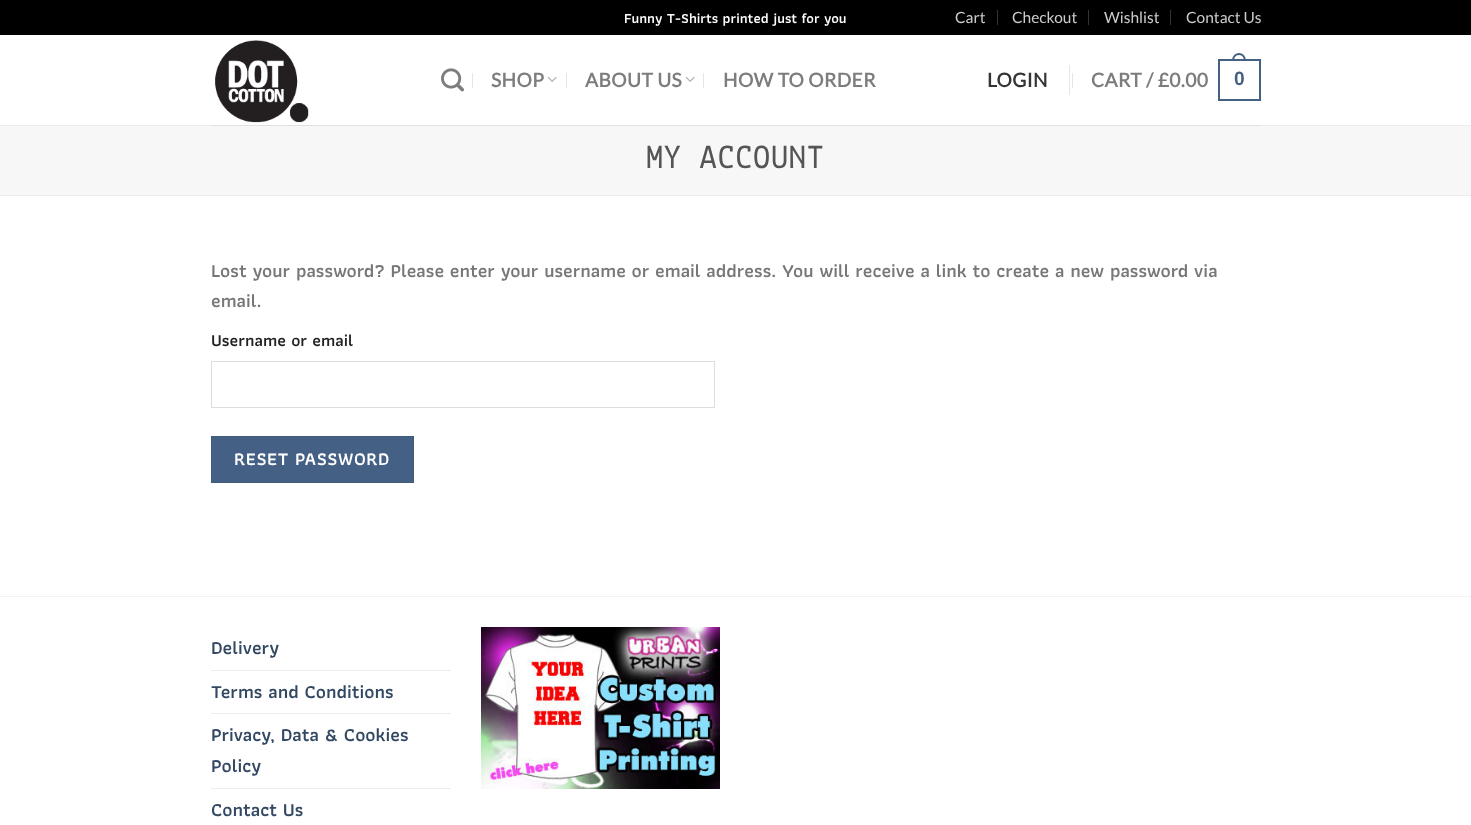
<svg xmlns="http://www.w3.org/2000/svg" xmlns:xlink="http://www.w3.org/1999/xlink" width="1471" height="825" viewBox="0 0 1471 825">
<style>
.cls-1{font:600 14.4px Athiti;fill:#ffffff}
.cls-2{font:15.5px Lato;fill:#cccccc}
.cls-3{font:bold 19.2px Lato;letter-spacing:0.4px;fill:#7d7d7d}
.cls-4{font:bold 19.2px Lato;letter-spacing:0.4px;fill:#353535}
.cls-5{font:bold 19.2px Liberation Sans;letter-spacing:0.4px;fill:#446084}
.cls-6{font:bold 32.5px Lekton;letter-spacing:1.6px;fill:#555555}
.cls-7{font:600 19.2px Athiti;fill:#777777}
.cls-8{font:600 17.25px Athiti;fill:#222222}
.cls-9{font:600 18.6px Athiti;letter-spacing:0.5px;fill:#ffffff}
.cls-10{font:600 19.2px Athiti;fill:#334862}
</style>
<rect width="100%" height="100%" fill="#ffffff"/>
<rect fill="#000000" x="0" y="0" width="1471" height="35"/>
<rect fill="#333333" x="997" y="10" width="1" height="15"/>
<rect fill="#333333" x="1088" y="10" width="1" height="15"/>
<rect fill="#333333" x="1170" y="10" width="1" height="15"/>
<image xlink:href="image0.png" x="215" y="40" width="94" height="83"/>
<image xlink:href="image1.png" x="441" y="68" width="23" height="24"/>
<rect fill="#e6e6e6" x="472" y="73" width="1" height="15"/>
<image xlink:href="image2.png" x="547" y="76" width="10" height="6"/>
<rect fill="#e6e6e6" x="566" y="73" width="1" height="15"/>
<image xlink:href="image2.png" x="685" y="76" width="10" height="6"/>
<rect fill="#e6e6e6" x="703" y="73" width="1" height="15"/>
<rect fill="#e6e6e6" x="1069" y="65" width="1" height="30"/>
<rect fill="#e6e6e6" x="1072" y="73" width="1" height="15"/>
<rect fill="none" stroke="#446084" stroke-width="2" x="1219" y="60" width="41" height="40"/>
<path fill="#446084" fill-rule="evenodd" d="M1239 53C1243.5 53 1246 57 1246 61H1232C1232 57 1234.5 53 1239 53ZM1239 55C1242.5 55 1244 58 1244 61H1234C1234 58 1235.5 55 1239 55Z"/>
<rect fill="#ececec" x="0" y="125" width="1471" height="1"/>
<rect fill="#e0e0e0" x="211" y="125" width="1050" height="1"/>
<rect fill="#f7f7f7" x="0" y="126" width="1471" height="69"/>
<rect fill="#ececec" x="0" y="195" width="1471" height="1"/>
<rect fill="none" stroke="#dddddd" x="211.5" y="361.5" width="503" height="46"/>
<rect fill="#446084" stroke="#415b7d" x="211.5" y="436.5" width="202" height="46"/>
<rect fill="#f2f2f2" x="0" y="596" width="1471" height="1"/>
<rect fill="#ececec" x="211" y="670" width="240" height="1"/>
<rect fill="#ececec" x="211" y="713" width="240" height="1"/>
<rect fill="#ececec" x="211" y="788" width="240" height="1"/>
<image xlink:href="image3.png" x="481" y="627" width="239" height="162"/>
<text class="cls-1" x="624" y="23">Funny T-Shirts printed just for you</text>
<text class="cls-2" x="955" y="23">Cart</text>
<text class="cls-2" x="1012" y="23">Checkout</text>
<text class="cls-2" x="1104" y="23">Wishlist</text>
<text class="cls-2" x="1186" y="23">Contact Us</text>
<text class="cls-3" x="491" y="87">SHOP</text>
<text class="cls-3" x="585" y="87">ABOUT US</text>
<text class="cls-3" x="723" y="87">HOW TO ORDER</text>
<text class="cls-4" x="987" y="87">LOGIN</text>
<text class="cls-3" x="1091" y="87">CART / £0.00</text>
<text class="cls-5" x="1234" y="85">0</text>
<text class="cls-6" x="646" y="168">MY ACCOUNT</text>
<text class="cls-7"><tspan x="211" y="277">Lost your password? Please enter your username or email address. You will receive a link to create a new password via</tspan><tspan x="211" y="307">email.</tspan></text>
<text class="cls-8" x="211" y="346">Username or email</text>
<text class="cls-9" x="234" y="465">RESET PASSWORD</text>
<text class="cls-10" x="211" y="654">Delivery</text>
<text class="cls-10" x="211" y="698">Terms and Conditions</text>
<text class="cls-10"><tspan x="211" y="741">Privacy, Data &amp; Cookies</tspan><tspan x="211" y="772">Policy</tspan></text>
<text class="cls-10" x="211" y="816">Contact Us</text>
</svg>
